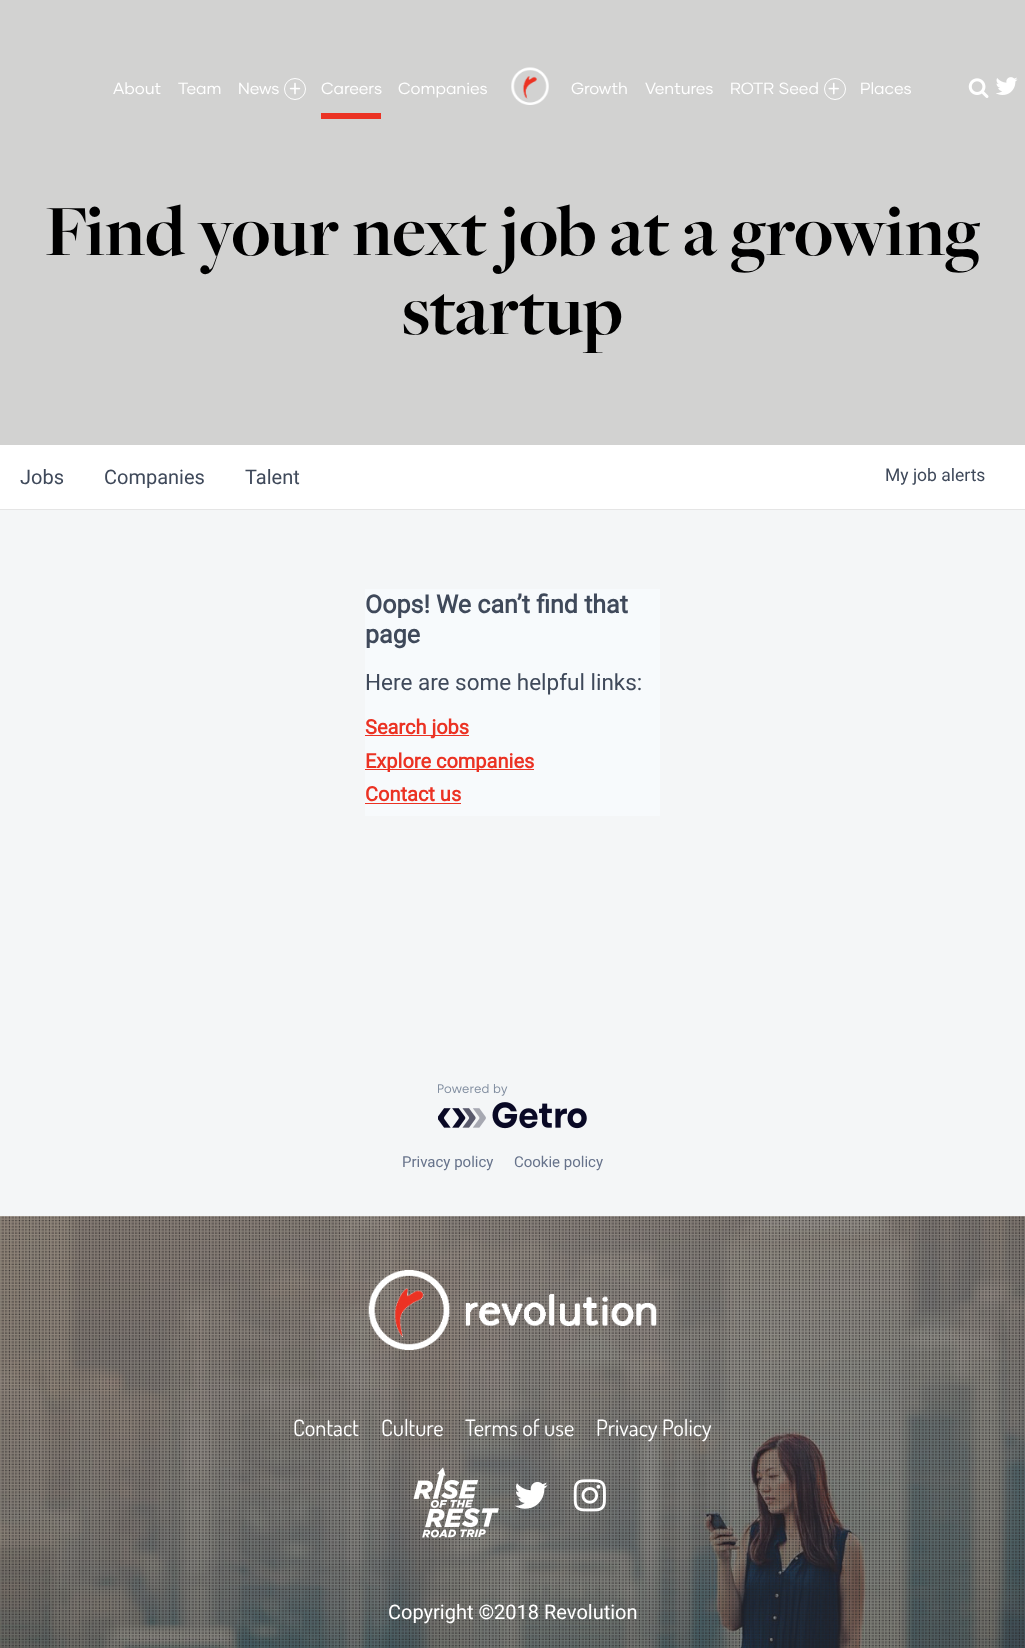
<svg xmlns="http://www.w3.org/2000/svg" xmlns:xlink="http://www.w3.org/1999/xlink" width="1025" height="1648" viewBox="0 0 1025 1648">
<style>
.cls-1{font:16.25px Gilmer;fill:#ffffff}
.cls-2{font:bold 75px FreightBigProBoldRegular;fill:#000000}
.cls-3{font:20px Roboto;fill:#3f495a}
.cls-4{font:17.5px Roboto;fill:#3f495a}
.cls-5{font:bold 25px Roboto;fill:#3f495a}
.cls-6{font:22.5px Roboto;fill:#3f495a}
.cls-7{font:bold 20px Roboto;fill:#eb3223}
.cls-8{font:15px Roboto;fill:#67738b}
.cls-9{font:22.5px Dosis;fill:#ffffff}
.cls-10{font:20px Roboto;fill:#ffffff}
</style>
<rect width="100%" height="100%" fill="#f4f6f7"/>
<rect fill="#d2d2d1" x="0" y="0" width="1025" height="445"/>
<circle fill="none" stroke="#ffffff" cx="295" cy="89" r="10.5"/>
<image xlink:href="image0.png" x="289" y="82" width="12" height="13"/>
<rect fill="#eb3223" x="321" y="113" width="60" height="6"/>
<image xlink:href="image1.png" x="511" y="67" width="38" height="38"/>
<circle fill="none" stroke="#ffffff" cx="835" cy="89" r="10.5"/>
<image xlink:href="image2.png" x="828" y="82" width="11" height="13"/>
<image xlink:href="image3.png" x="968" y="78" width="21" height="20"/>
<image xlink:href="image4.png" x="996" y="77" width="22" height="18"/>
<rect fill="#e5e5e5" x="0" y="509" width="1025" height="1"/>
<rect fill="#ffffff" x="0" y="445" width="1025" height="64"/>
<rect fill="#f7fafc" x="365" y="589" width="295" height="227"/>
<rect fill="#eb3223" x="365" y="735" width="104" height="1"/>
<rect fill="#eb3223" x="365" y="769" width="169" height="1"/>
<rect fill="#eb3223" x="365" y="803" width="96" height="1"/>
<image xlink:href="image5.png" x="438" y="1084" width="149" height="45"/>
<image xlink:href="image6.png" x="0" y="1216" width="1025" height="432"/>
<image xlink:href="image7.png" x="0" y="1216" width="1025" height="432"/>
<image xlink:href="image8.png" x="368" y="1270" width="289" height="80"/>
<image xlink:href="image9.png" x="413" y="1467" width="86" height="71"/>
<image xlink:href="image10.png" x="515" y="1482" width="33" height="27"/>
<image xlink:href="image11.png" x="573" y="1479" width="33" height="33"/>
<text class="cls-1" x="113" y="94">About</text>
<text class="cls-1" x="178" y="94">Team</text>
<text class="cls-1" x="238" y="94">News</text>
<text class="cls-1" x="321" y="94">Careers</text>
<text class="cls-1" x="398" y="94">Companies</text>
<text class="cls-1" x="571" y="94">Growth</text>
<text class="cls-1" x="645" y="94">Ventures</text>
<text class="cls-1" x="730" y="94">ROTR Seed</text>
<text class="cls-1" x="860" y="94">Places</text>
<text class="cls-2" x="45" y="255">Find your next job at a growing</text>
<text class="cls-2" x="402" y="334">startup</text>
<text class="cls-3" x="20" y="484">Jobs</text>
<text class="cls-3" x="104" y="484">Companies</text>
<text class="cls-3" x="245" y="484">Talent</text>
<text class="cls-4" x="885" y="481">My job alerts</text>
<text class="cls-5"><tspan x="365" y="613">Oops! We can’t find that</tspan><tspan x="365" y="643">page</tspan></text>
<text class="cls-6" x="365" y="690">Here are some helpful links:</text>
<text class="cls-7"><tspan x="365" y="734">Search jobs</tspan><tspan x="365" y="768">Explore companies</tspan><tspan x="365" y="801">Contact us</tspan></text>
<text class="cls-8" x="402" y="1167">Privacy policy</text>
<text class="cls-8" x="514" y="1167">Cookie policy</text>
<text class="cls-9" x="293" y="1436">Contact</text>
<text class="cls-9" x="381" y="1436">Culture</text>
<text class="cls-9" x="465" y="1436">Terms of use</text>
<text class="cls-9" x="596" y="1436">Privacy Policy</text>
<text class="cls-10" x="388" y="1619">Copyright ©2018 Revolution</text>
</svg>
